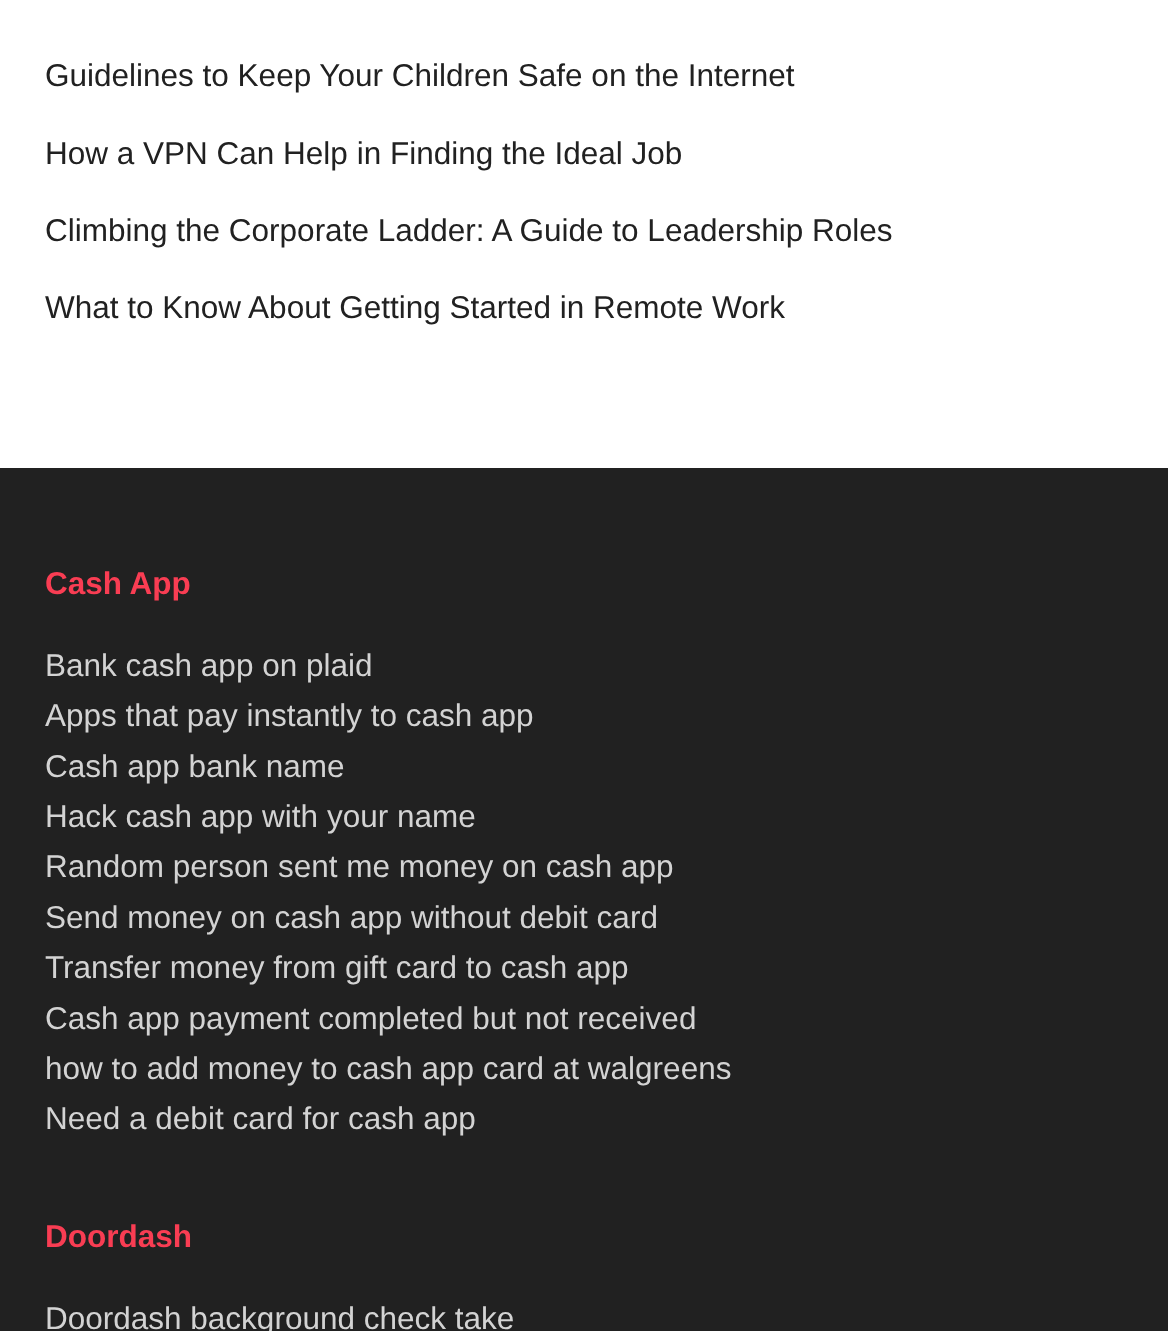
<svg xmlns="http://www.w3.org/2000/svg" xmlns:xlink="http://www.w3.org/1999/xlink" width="1168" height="1331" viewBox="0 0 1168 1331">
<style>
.cls-1{font:31.5px Liberation Sans;fill:#212121}
.cls-2{font:bold 31.5px Liberation Sans;fill:#f93d53}
.cls-3{font:31.5px Liberation Sans;fill:#d3d3d3}
</style>
<rect width="100%" height="100%" fill="#ffffff"/>
<rect fill="#212121" x="0" y="468" width="1168" height="863"/>
<text class="cls-1" x="45" y="86">Guidelines to Keep Your Children Safe on the Internet</text>
<text class="cls-1" x="45" y="164">How a VPN Can Help in Finding the Ideal Job</text>
<text class="cls-1" x="45" y="241">Climbing the Corporate Ladder: A Guide to Leadership Roles</text>
<text class="cls-1" x="45" y="318">What to Know About Getting Started in Remote Work</text>
<text class="cls-2" x="45" y="594">Cash App</text>
<text class="cls-3"><tspan x="45" y="676">Bank cash app on plaid</tspan><tspan x="45" y="726">Apps that pay instantly to cash app</tspan><tspan x="45" y="777">Cash app bank name</tspan><tspan x="45" y="827">Hack cash app with your name</tspan><tspan x="45" y="877">Random person sent me money on cash app</tspan><tspan x="45" y="928">Send money on cash app without debit card</tspan><tspan x="45" y="978">Transfer money from gift card to cash app</tspan><tspan x="45" y="1029">Cash app payment completed but not received</tspan><tspan x="45" y="1079">how to add money to cash app card at walgreens</tspan><tspan x="45" y="1129">Need a debit card for cash app</tspan></text>
<text class="cls-2" x="45" y="1247">Doordash</text>
<text class="cls-3" x="45" y="1329">Doordash background check take</text>
</svg>
